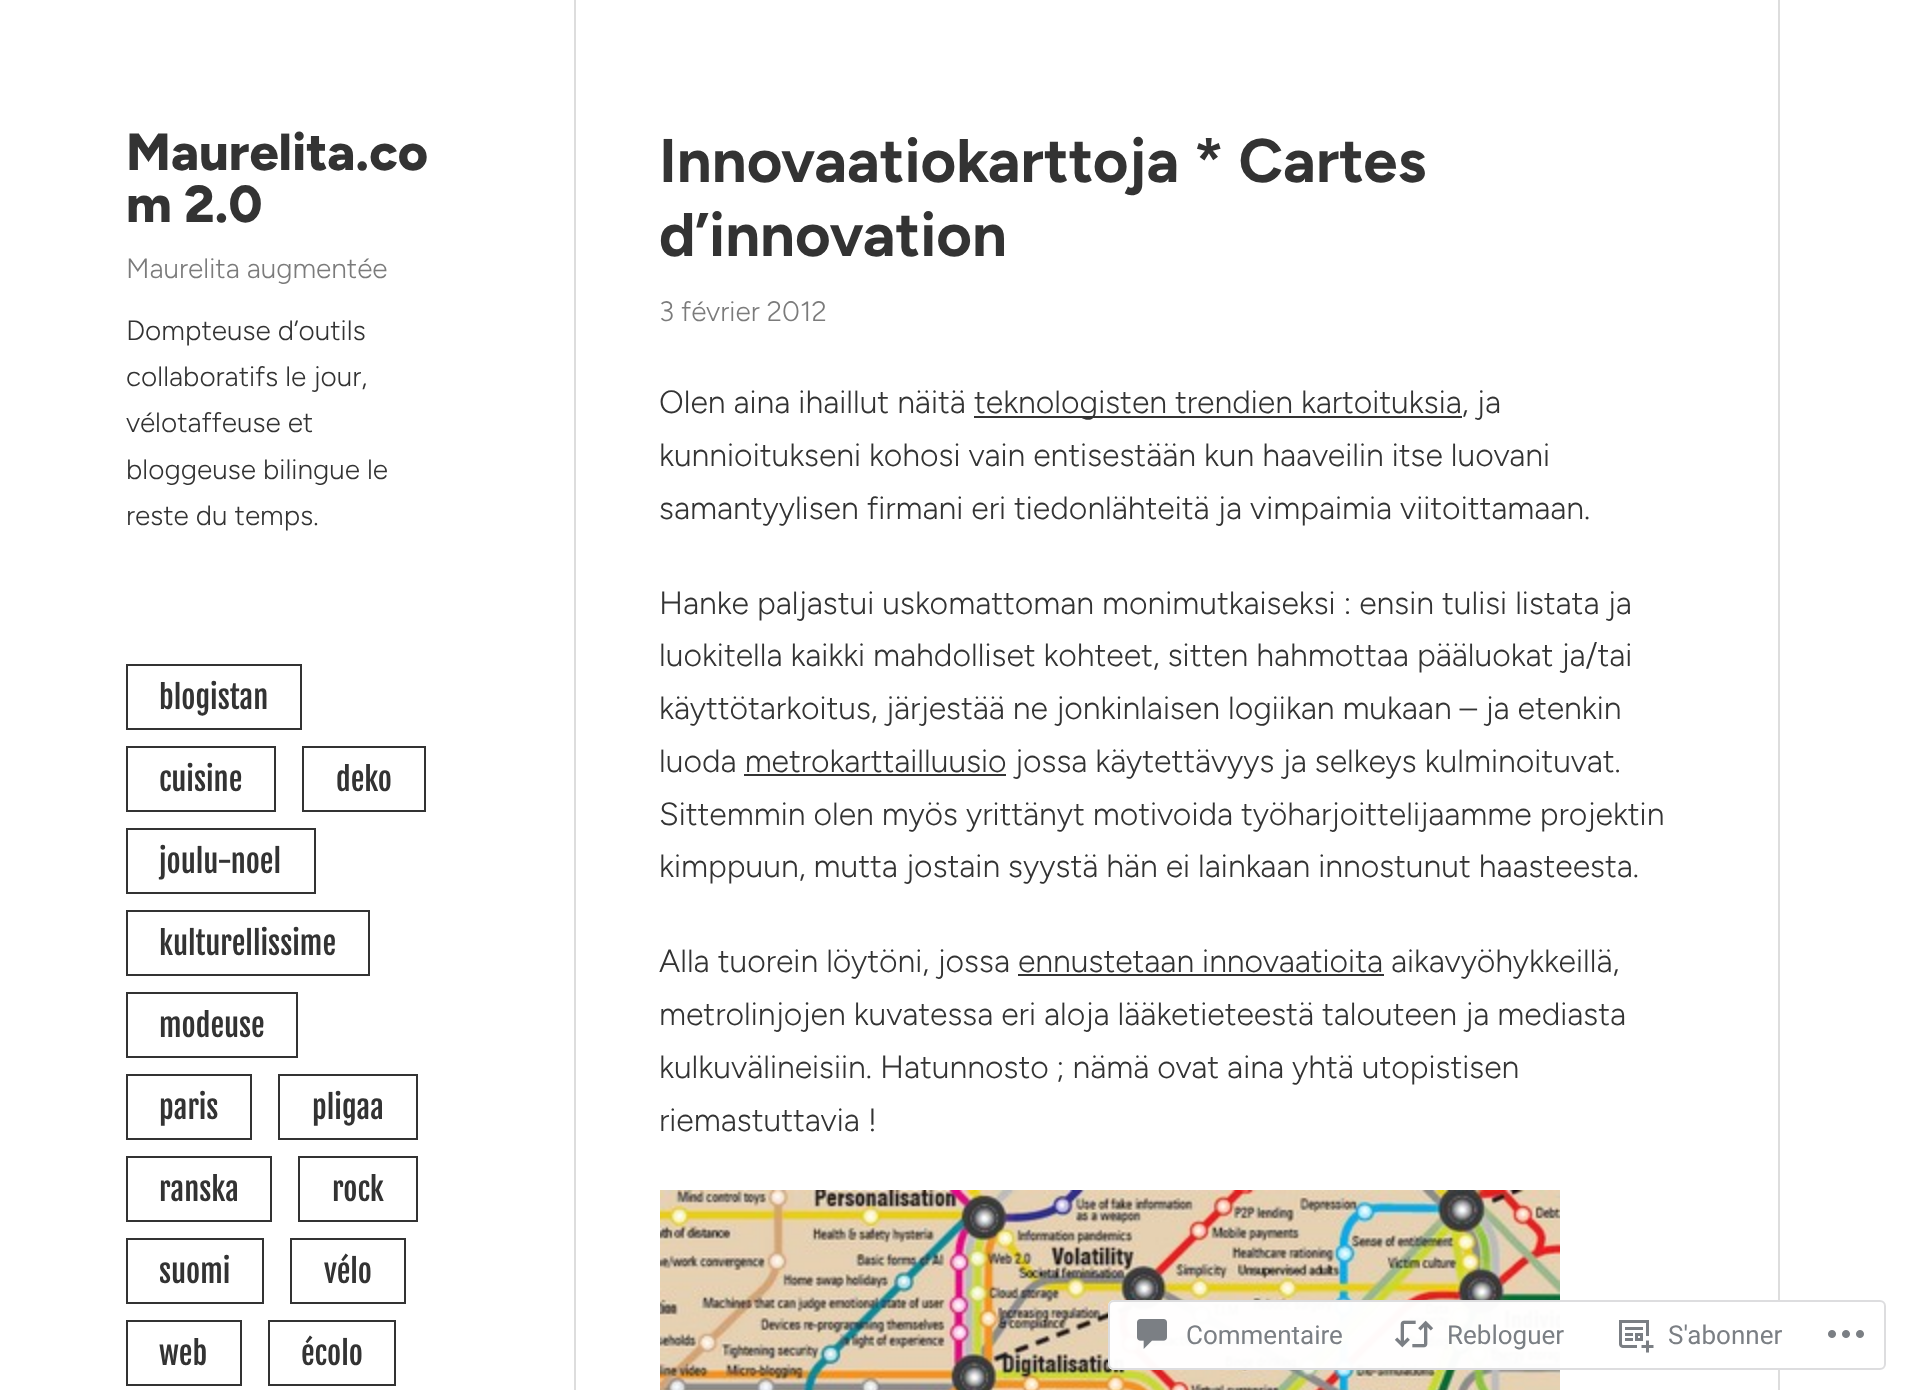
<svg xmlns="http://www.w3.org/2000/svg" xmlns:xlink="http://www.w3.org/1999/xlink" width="1905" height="1390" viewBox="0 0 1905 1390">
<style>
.cls-1{font:800 52px Figtree;fill:#333333}
.cls-2{font:300 28px Figtree;fill:#7b7b7b}
.cls-3{font:300 28px Figtree;fill:#333333}
.cls-4{font:30.5px Fjalla One;fill:#333333}
.cls-5{font:bold 61.5px Figtree;fill:#333333}
.cls-6{font:300 32px Figtree;fill:#333333}
.cls-7{font:26px Roboto;fill:#7b7f84}
</style>
<rect width="100%" height="100%" fill="#ffffff"/>
<rect fill="none" stroke="#333333" stroke-width="2" x="127" y="665" width="174" height="64"/>
<rect fill="none" stroke="#333333" stroke-width="2" x="127" y="747" width="148" height="64"/>
<rect fill="none" stroke="#333333" stroke-width="2" x="303" y="747" width="122" height="64"/>
<rect fill="none" stroke="#333333" stroke-width="2" x="127" y="829" width="188" height="64"/>
<rect fill="none" stroke="#333333" stroke-width="2" x="127" y="911" width="242" height="64"/>
<rect fill="none" stroke="#333333" stroke-width="2" x="127" y="993" width="170" height="64"/>
<rect fill="none" stroke="#333333" stroke-width="2" x="127" y="1075" width="124" height="64"/>
<rect fill="none" stroke="#333333" stroke-width="2" x="279" y="1075" width="138" height="64"/>
<rect fill="none" stroke="#333333" stroke-width="2" x="127" y="1157" width="144" height="64"/>
<rect fill="none" stroke="#333333" stroke-width="2" x="299" y="1157" width="118" height="64"/>
<rect fill="none" stroke="#333333" stroke-width="2" x="127" y="1239" width="136" height="64"/>
<rect fill="none" stroke="#333333" stroke-width="2" x="291" y="1239" width="114" height="64"/>
<rect fill="none" stroke="#333333" stroke-width="2" x="127" y="1321" width="114" height="64"/>
<rect fill="none" stroke="#333333" stroke-width="2" x="269" y="1321" width="126" height="64"/>
<rect fill="#dddddd" x="1778" y="0" width="2" height="1390"/>
<rect fill="#dddddd" x="574" y="0" width="2" height="1390"/>
<rect fill="#333333" x="974" y="416" width="488" height="2"/>
<rect fill="#333333" x="744" y="774" width="262" height="2"/>
<rect fill="#333333" x="1018" y="974" width="366" height="2"/>
<image xlink:href="image0.png" x="660" y="1190" width="900" height="200"/>
<rect fill="#ffffff" fill-opacity="0.98" x="1108" y="1300" width="778" height="70" rx="6"/>
<rect fill="none" stroke="#dcdcde" stroke-opacity="0.98" stroke-width="2" x="1109" y="1301" width="776" height="68" rx="5"/>
<image xlink:href="image1.png" x="1137" y="1319" width="30" height="30"/>
<image xlink:href="image2.png" x="1394" y="1320" width="40" height="28"/>
<image xlink:href="image3.png" x="1619" y="1320" width="35" height="33"/>
<image xlink:href="image4.png" x="1828" y="1330" width="36" height="8"/>
<text class="cls-1"><tspan x="126" y="170">Maurelita.co</tspan><tspan x="126" y="222">m 2.0</tspan></text>
<text class="cls-2" x="126" y="278">Maurelita augmentée</text>
<text class="cls-3"><tspan x="126" y="340">Dompteuse d’outils</tspan><tspan x="126" y="386">collaboratifs le jour,</tspan><tspan x="126" y="432">vélotaffeuse et</tspan><tspan x="126" y="479">bloggeuse bilingue le</tspan><tspan x="126" y="525">reste du temps.</tspan></text>
<text class="cls-4" x="159" y="709">blogistan</text>
<text class="cls-4" x="159" y="791">cuisine</text>
<text class="cls-4" x="336" y="791">deko</text>
<text class="cls-4" x="159" y="873">joulu-noel</text>
<text class="cls-4" x="159" y="955">kulturellissime</text>
<text class="cls-4" x="159" y="1037">modeuse</text>
<text class="cls-4" x="159" y="1119">paris</text>
<text class="cls-4" x="312" y="1119">pligaa</text>
<text class="cls-4" x="159" y="1201">ranska</text>
<text class="cls-4" x="332" y="1201">rock</text>
<text class="cls-4" x="159" y="1283">suomi</text>
<text class="cls-4" x="324" y="1283">vélo</text>
<text class="cls-4" x="159" y="1365">web</text>
<text class="cls-4" x="301" y="1365">écolo</text>
<text class="cls-5"><tspan x="659" y="182">Innovaatiokarttoja * Cartes</tspan><tspan x="659" y="256">d’innovation</tspan></text>
<text class="cls-2" x="659" y="321">3 février 2012</text>
<text class="cls-6" x="659" y="413">Olen aina ihaillut näitä</text>
<text class="cls-6" x="974" y="413">teknologisten trendien kartoituksia, ja</text>
<text class="cls-6"><tspan x="659" y="466">kunnioitukseni kohosi vain entisestään kun haaveilin itse luovani</tspan><tspan x="659" y="519">samantyylisen firmani eri tiedonlähteitä ja vimpaimia viitoittamaan.</tspan></text>
<text class="cls-6"><tspan x="659" y="614">Hanke paljastui uskomattoman monimutkaiseksi : ensin tulisi listata ja</tspan><tspan x="659" y="666">luokitella kaikki mahdolliset kohteet, sitten hahmottaa pääluokat ja/tai</tspan><tspan x="659" y="719">käyttötarkoitus, järjestää ne jonkinlaisen logiikan mukaan – ja etenkin</tspan><tspan x="659" y="772">luoda metrokarttailluusio jossa käytettävyys ja selkeys kulminoituvat.</tspan><tspan x="659" y="825">Sittemmin olen myös yrittänyt motivoida työharjoittelijaamme projektin</tspan><tspan x="659" y="877">kimppuun, mutta jostain syystä hän ei lainkaan innostunut haasteesta.</tspan></text>
<text class="cls-6"><tspan x="659" y="972">Alla tuorein löytöni, jossa ennustetaan innovaatioita aikavyöhykkeillä,</tspan><tspan x="659" y="1025">metrolinjojen kuvatessa eri aloja lääketieteestä talouteen ja mediasta</tspan><tspan x="659" y="1078">kulkuvälineisiin. Hatunnosto ; nämä ovat aina yhtä utopistisen</tspan><tspan x="659" y="1131">riemastuttavia !</tspan></text>
<text class="cls-7" x="1186" y="1344">Commentaire</text>
<text class="cls-7" x="1447" y="1344">Rebloguer</text>
<text class="cls-7" x="1668" y="1344">S'abonner</text>
</svg>
